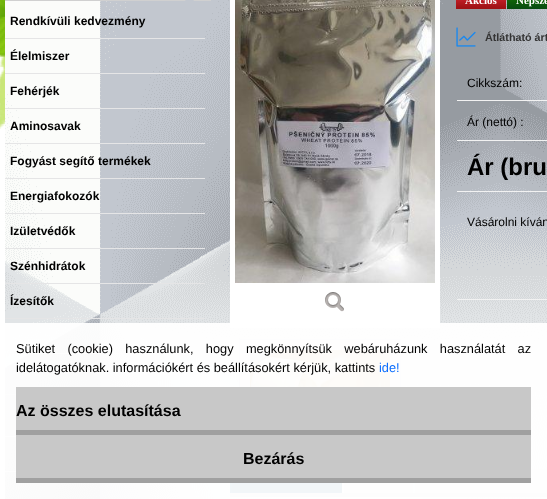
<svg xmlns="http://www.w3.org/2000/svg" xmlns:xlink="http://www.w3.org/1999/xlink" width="547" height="499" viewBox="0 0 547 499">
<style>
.cls-1{font:bold 12px Liberation Sans;fill:#000000}
.cls-2{font:bold 11px Liberation Serif;fill:#ffffff}
.cls-3{font:bold 10.75px Liberation Sans;fill:#343434}
.cls-4{font:12px Liberation Sans;fill:#000000}
.cls-5{font:bold 24px Liberation Sans;fill:#000000}
.cls-6{font:12.8px Liberation Sans;fill:#000000}
.cls-7{font:12.8px Liberation Sans;fill:#0d6efd}
.cls-8{font:bold 16px Liberation Sans;fill:#000000}
</style>
<rect width="100%" height="100%" fill="#ffffff"/>
<image xlink:href="image0.png" x="0" y="0" width="5" height="129"/>
<image xlink:href="image1.png" x="5" y="0" width="542" height="499"/>
<image xlink:href="image2.png" x="5" y="0" width="206" height="1"/>
<rect fill="#e5e5e6" x="5" y="38" width="200" height="1"/>
<rect fill="#e5e5e6" x="5" y="73" width="200" height="1"/>
<rect fill="#e5e5e6" x="5" y="108" width="200" height="1"/>
<rect fill="#e5e5e6" x="5" y="143" width="200" height="1"/>
<rect fill="#e5e5e6" x="5" y="178" width="200" height="1"/>
<rect fill="#e5e5e6" x="5" y="213" width="200" height="1"/>
<rect fill="#e5e5e6" x="5" y="248" width="200" height="1"/>
<rect fill="#e5e5e6" x="5" y="283" width="200" height="1"/>
<rect fill="#e5e5e6" x="5" y="318" width="200" height="1"/>
<rect fill="#e5e5e6" x="5" y="353" width="200" height="1"/>
<image xlink:href="image3.png" x="5" y="394" width="11" height="1"/>
<rect fill="#e5e5e6" x="5" y="436" width="11" height="1"/>
<rect fill="#e5e5e6" x="5" y="471" width="11" height="1"/>
<rect fill="#ffffff" x="230" y="0" width="210" height="328"/>
<image xlink:href="image4.png" x="235" y="0" width="200" height="283"/>
<image xlink:href="image5.png" x="325" y="292" width="19" height="20"/>
<image xlink:href="image6.png" x="456" y="0" width="50" height="9"/>
<image xlink:href="image7.png" x="507" y="0" width="40" height="9"/>
<image xlink:href="image8.png" x="456" y="27" width="20" height="20"/>
<rect fill="#f2f2f2" x="457" y="100" width="90" height="1"/>
<rect fill="#f2f2f2" x="457" y="140" width="90" height="1"/>
<rect fill="#f2f2f2" x="457" y="191" width="90" height="1"/>
<rect fill="#f2f2f2" x="457" y="299" width="90" height="1"/>
<rect fill="#f0ebe8" fill-opacity="0.9" x="239" y="339" width="162" height="48"/>
<rect fill="none" stroke="#d3d5da" stroke-opacity="0.9" x="239.5" y="339.5" width="161" height="114"/>
<image xlink:href="image9.png" x="250" y="350" width="140" height="37"/>
<image xlink:href="image10.png" x="230" y="483" width="2" height="10"/>
<image xlink:href="image11.png" x="232" y="483" width="110" height="10"/>
<image xlink:href="image12.png" x="344" y="483" width="67" height="10"/>
<image xlink:href="image13.png" x="411" y="483" width="2" height="10"/>
<image xlink:href="image14.png" x="415" y="469" width="132" height="24"/>
<rect fill="#d0d0d0" x="230" y="493" width="317" height="4"/>
<rect fill="#ffffff" fill-opacity="0.95" x="5" y="323" width="542" height="176"/>
<rect fill="#c8c8c8" x="16" y="387" width="515" height="43"/>
<rect fill="#a0a0a0" x="16" y="430" width="515" height="5"/>
<rect fill="#c8c8c8" x="16" y="435" width="515" height="43"/>
<rect fill="#a0a0a0" x="16" y="478" width="515" height="5"/>
<text class="cls-1" x="10" y="25">Rendkívüli kedvezmény</text>
<text class="cls-1" x="10" y="60">Élelmiszer</text>
<text class="cls-1" x="10" y="95">Fehérjék</text>
<text class="cls-1" x="10" y="130">Aminosavak</text>
<text class="cls-1" x="10" y="165">Fogyást segítő termékek</text>
<text class="cls-1" x="10" y="200">Energiafokozók</text>
<text class="cls-1" x="10" y="235">Izületvédők</text>
<text class="cls-1" x="10" y="270">Szénhidrátok</text>
<text class="cls-1" x="10" y="305">Ízesítők</text>
<text class="cls-2" x="465" y="4">Akciós</text>
<text class="cls-2" x="516" y="4">Népsze</text>
<text class="cls-3" x="485" y="41">Átlátható árt</text>
<text class="cls-4" x="467" y="87">Cikkszám:</text>
<text class="cls-4" x="467" y="126">Ár (nettó) :</text>
<text class="cls-5" x="467" y="175">Ár (bru</text>
<text class="cls-4" x="467" y="226">Vásárolni kíván</text>
<text class="cls-6"><tspan x="16" y="353" word-spacing="8.75">Sütiket (cookie) használunk, hogy megkönnyítsük webáruházunk használatát az</tspan><tspan x="16" y="372">idelátogatóknak. információkért és beállításokért kérjük, kattints</tspan></text>
<text class="cls-7" x="379" y="372">ide!</text>
<text class="cls-8" x="16" y="416">Az összes elutasítása</text>
<text class="cls-8" x="243" y="464">Bezárás</text>
</svg>
